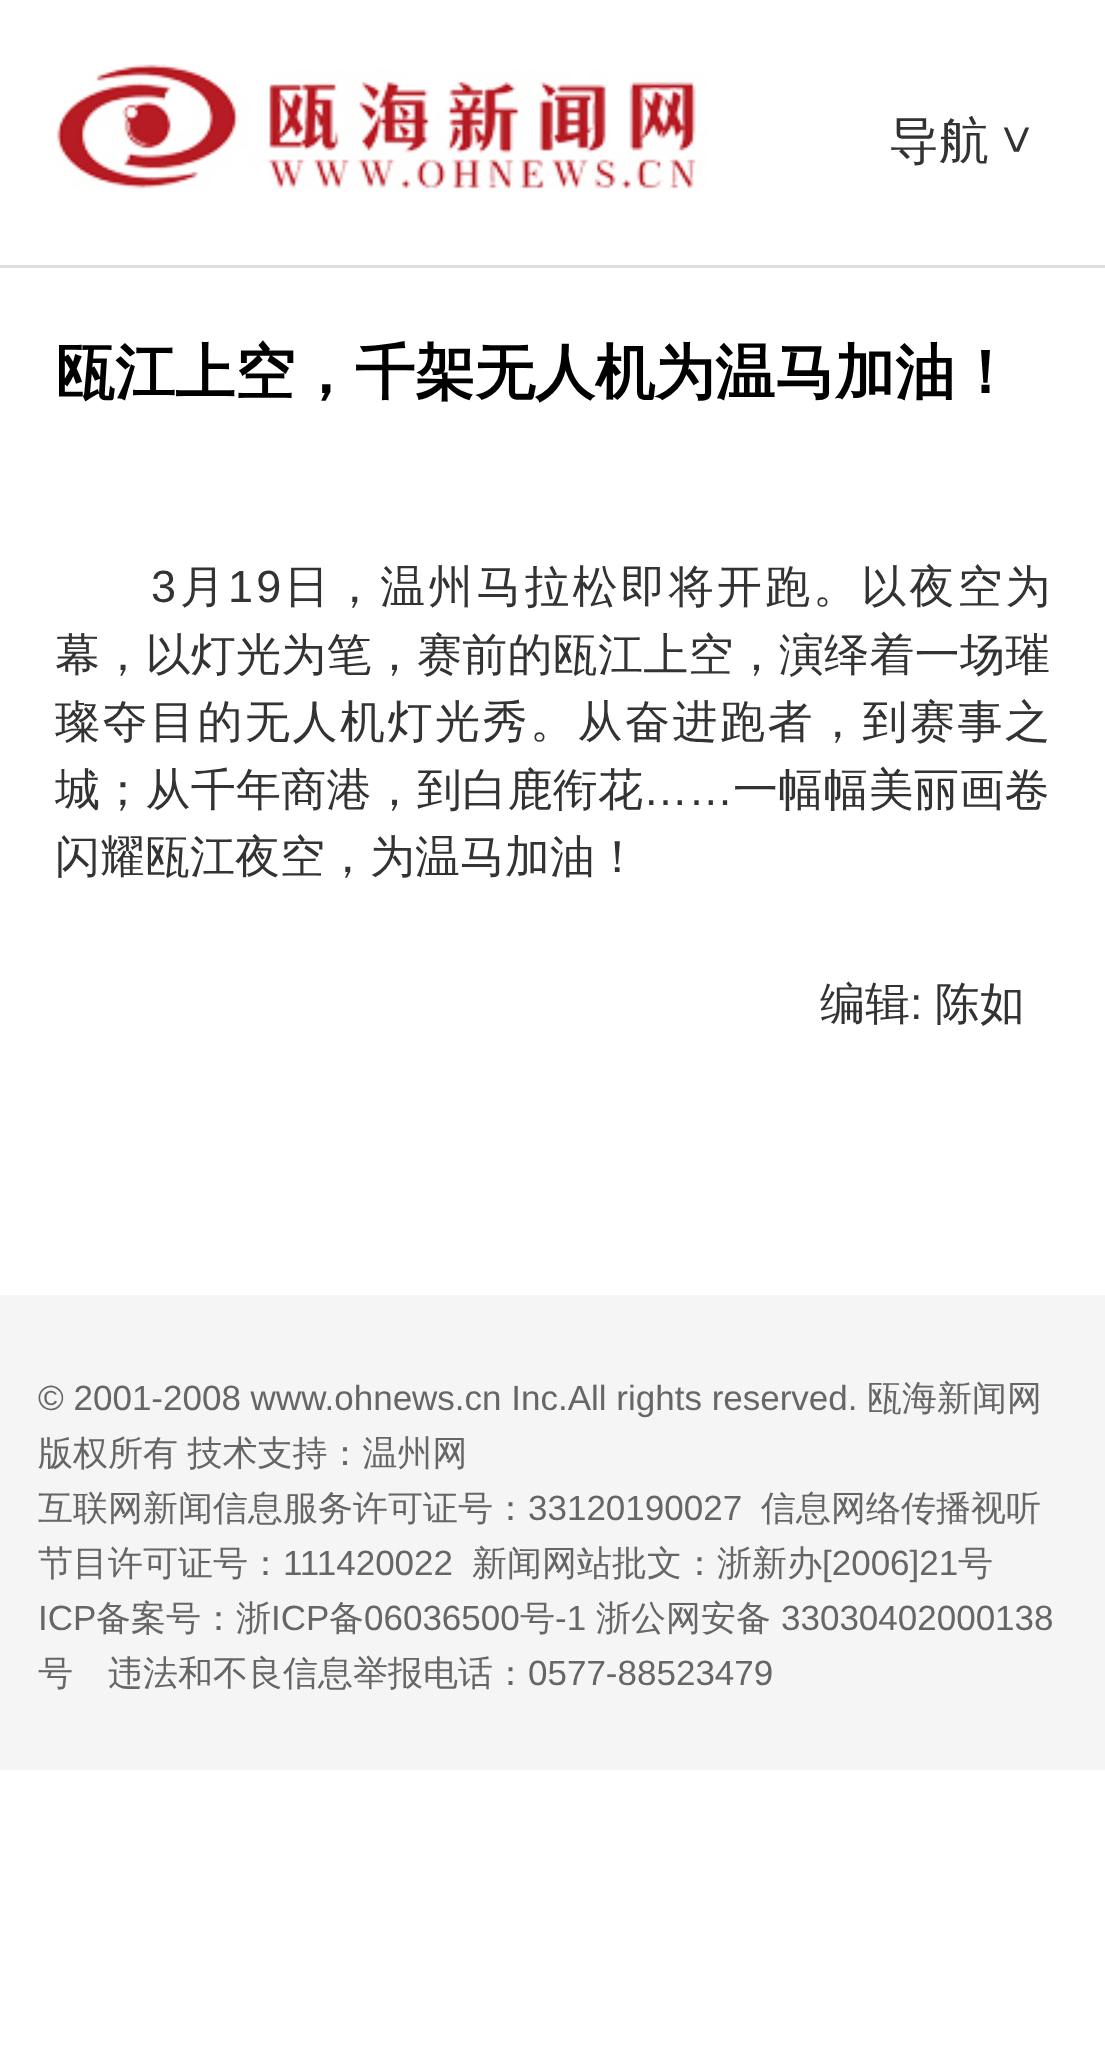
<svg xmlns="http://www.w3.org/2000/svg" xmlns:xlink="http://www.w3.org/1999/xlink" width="1105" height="2059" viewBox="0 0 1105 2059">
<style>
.cls-1{font:500 50px WenQuanYi Zen Hei;fill:#333333}
.cls-2{font:50px Liberation Sans;fill:#333333}
.cls-3{font:bold 60px WenQuanYi Zen Hei;fill:#000000}
.cls-4{font:45px Liberation Sans;letter-spacing:3.1px;fill:#333333}
.cls-5{font:500 45px WenQuanYi Zen Hei;letter-spacing:3.1px;fill:#333333}
.cls-6{font:500 45px WenQuanYi Zen Hei;letter-spacing:0.25px;fill:#333333}
.cls-7{font:500 45px WenQuanYi Zen Hei;letter-spacing:2.5px;fill:#333333}
.cls-8{font:45px Liberation Sans;letter-spacing:0.25px;fill:#333333}
.cls-9{font:500 45px WenQuanYi Zen Hei;fill:#333333}
.cls-10{font:45px Liberation Sans;fill:#333333}
.cls-11{font:35px Liberation Sans;fill:#666666}
.cls-12{font:500 35px WenQuanYi Zen Hei;fill:#666666}
</style>
<rect width="100%" height="100%" fill="#ffffff"/>
<rect fill="#dedede" x="0" y="265" width="1105" height="3"/>
<image xlink:href="image0.png" x="56" y="64" width="651" height="125"/>
<rect fill="#f5f5f5" x="0" y="1295" width="1105" height="475"/>
<text class="cls-1" x="889" y="158">导航</text>
<text class="cls-2" x="1000" y="125" transform="rotate(90 1000 125)">&gt;</text>
<text class="cls-3" x="55" y="393">瓯江上空，千架无人机为温马加油！</text>
<text class="cls-4" x="151" y="602">3</text>
<text class="cls-5" x="180" y="602">月</text>
<text class="cls-4" x="228" y="602">19</text>
<text class="cls-5" x="284" y="602">日，温州马拉松即将开跑。以夜空为</text>
<text class="cls-6" x="55" y="670">幕，以灯光为笔，赛前的瓯江上空，演绎着一场璀</text>
<text class="cls-7" x="55" y="737">璨夺目的无人机灯光秀。从奋进跑者，到赛事之</text>
<text class="cls-6" x="55" y="805">城；从千年商港，到白鹿衔花</text>
<text class="cls-8" x="643" y="805">……</text>
<text class="cls-6" x="733" y="805">一幅幅美丽画卷</text>
<text class="cls-9" x="55" y="872">闪耀瓯江夜空，为温马加油！</text>
<text class="cls-9" x="820" y="1019">编辑</text>
<text class="cls-10" x="910" y="1019">:</text>
<text class="cls-9" x="935" y="1019">陈如</text>
<text class="cls-11" x="38" y="1410">© 2001-2008 www.ohnews.cn Inc.All rights reserved.</text>
<text class="cls-12" x="867" y="1410">瓯海新闻网</text>
<text class="cls-12"><tspan x="38" y="1465" word-spacing="-1">版权所有 技术支持：温州网</tspan><tspan x="38" y="1520">互联网新闻信息服务许可证号：</tspan></text>
<text class="cls-11" x="528" y="1520">33120190027</text>
<text class="cls-12" x="761" y="1520">信息网络传播视听</text>
<text class="cls-12" x="38" y="1575">节目许可证号：</text>
<text class="cls-11" x="283" y="1575">111420022</text>
<text class="cls-12" x="472" y="1575">新闻网站批文：浙新办</text>
<text class="cls-11" x="822" y="1575">[2006]21</text>
<text class="cls-12" x="958" y="1575">号</text>
<text class="cls-11" x="38" y="1630">ICP</text>
<text class="cls-12" x="96" y="1630">备案号：浙</text>
<text class="cls-11" x="271" y="1630">ICP</text>
<text class="cls-12" x="329" y="1630">备</text>
<text class="cls-11" x="364" y="1630">06036500</text>
<text class="cls-12" x="520" y="1630">号</text>
<text class="cls-11" x="555" y="1630">-1</text>
<text class="cls-12" x="596" y="1630">浙公网安备</text>
<text class="cls-11" x="781" y="1630">33030402000138</text>
<text class="cls-12" x="38" y="1685">号</text>
<text class="cls-12" x="108" y="1685">违法和不良信息举报电话：</text>
<text class="cls-11" x="528" y="1685">0577-88523479</text>
</svg>
